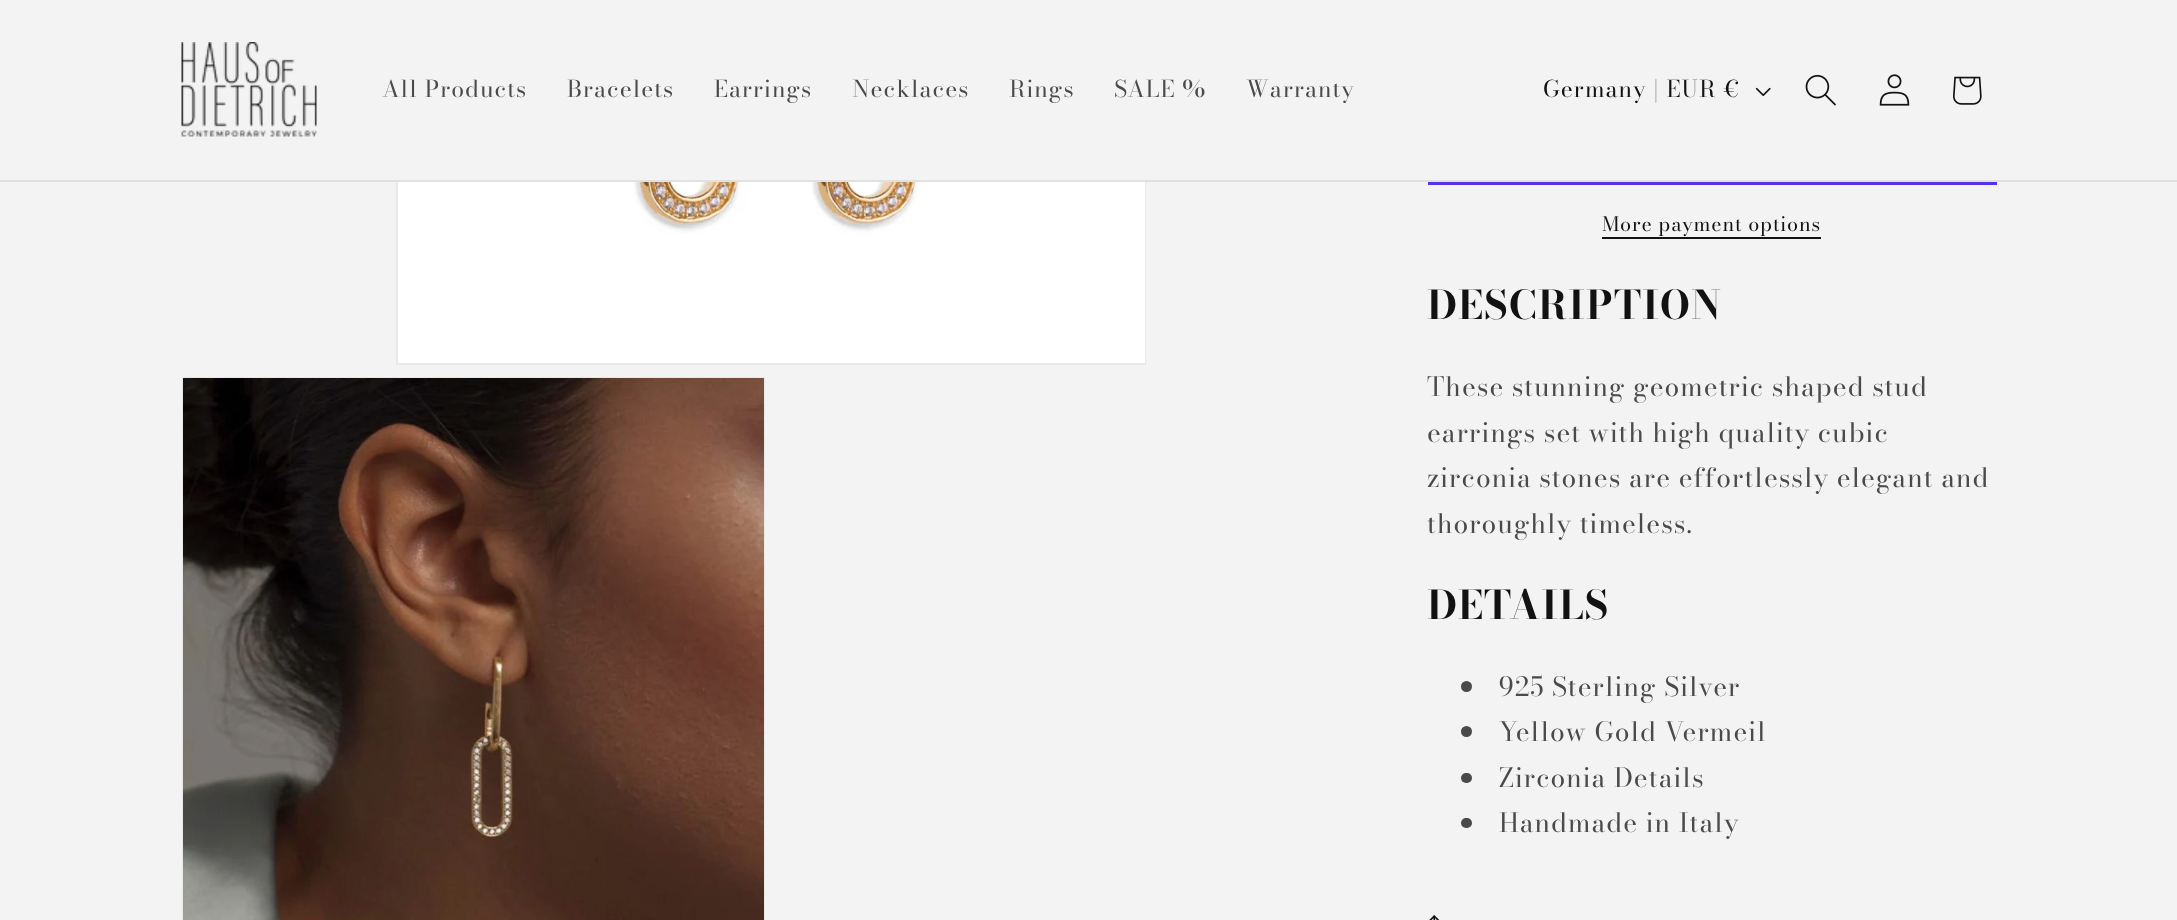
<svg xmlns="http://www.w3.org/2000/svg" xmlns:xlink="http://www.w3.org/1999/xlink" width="2177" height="920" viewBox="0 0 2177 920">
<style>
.cls-1{font:23px 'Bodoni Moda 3';letter-spacing:1px;fill:#4a4a4a}
.cls-2{font:23px 'Bodoni Moda 3';letter-spacing:1px;fill:#121212}
.cls-3{font:19.75px Bodoni Moda;letter-spacing:0.8px;fill:#121212}
.cls-4{font:bold 39.5px Bodoni Moda;letter-spacing:1px;fill:#121212}
.cls-5{font:26.4px 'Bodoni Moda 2';letter-spacing:1px;fill:#4a4a4a}
</style>
<rect width="100%" height="100%" fill="#f3f3f3"/>
<rect fill="none" stroke="#e8e8e8" stroke-width="2" x="397" y="-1" width="748" height="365"/>
<rect fill="#f3f3f3" x="396" y="0" width="750" height="180"/>
<rect fill="#e1e1e1" x="0" y="180" width="2177" height="2"/>
<image xlink:href="image0.png" x="181" y="42" width="136" height="95"/>
<image xlink:href="image1.png" x="1755" y="87" width="16" height="9"/>
<image xlink:href="image2.png" x="1805" y="74" width="31" height="32"/>
<image xlink:href="image3.png" x="1879" y="74" width="31" height="32"/>
<image xlink:href="image4.png" x="1953" y="76" width="29" height="29"/>
<image xlink:href="image5.png" x="398" y="182" width="747" height="181"/>
<rect fill="none" stroke="#e8e8e8" stroke-width="2" x="183" y="378" width="581" height="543"/>
<image xlink:href="image6.png" x="183" y="378" width="581" height="542"/>
<rect fill="#5433eb" x="1428" y="182" width="569" height="3"/>
<rect fill="#121212" x="1602" y="237" width="219" height="2"/>
<circle fill="#4a4a4a" cx="1466.5" cy="686.5" r="5.5"/>
<circle fill="#4a4a4a" cx="1466.5" cy="731.5" r="5.5"/>
<rect fill="#4a4a4a" x="1461" y="773" width="11" height="10" rx="5"/>
<rect fill="#4a4a4a" x="1461" y="818" width="11" height="10" rx="5"/>
<image xlink:href="image7.png" x="1429" y="915" width="11" height="5"/>
<text class="cls-1" x="382" y="97">All Products</text>
<text class="cls-1" x="567" y="97">Bracelets</text>
<text class="cls-1" x="714" y="97">Earrings</text>
<text class="cls-1" x="852" y="97">Necklaces</text>
<text class="cls-1" x="1009" y="97">Rings</text>
<text class="cls-1" x="1114" y="97">SALE %</text>
<text class="cls-1" x="1246" y="97">Warranty</text>
<text class="cls-2" x="1543" y="97">Germany | EUR €</text>
<text class="cls-3" x="1602" y="231">More payment options</text>
<text class="cls-4" x="1427" y="319">DESCRIPTION</text>
<text class="cls-5"><tspan x="1427" y="396">These stunning geometric shaped stud</tspan><tspan x="1427" y="442">earrings set with high quality cubic</tspan><tspan x="1427" y="487">zirconia stones are effortlessly elegant and</tspan><tspan x="1427" y="533">thoroughly timeless.</tspan></text>
<text class="cls-4" x="1427" y="619">DETAILS</text>
<text class="cls-5"><tspan x="1499" y="696">925 Sterling Silver</tspan><tspan x="1499" y="741">Yellow Gold Vermeil</tspan><tspan x="1499" y="787">Zirconia Details</tspan><tspan x="1499" y="832">Handmade in Italy</tspan></text>
</svg>
